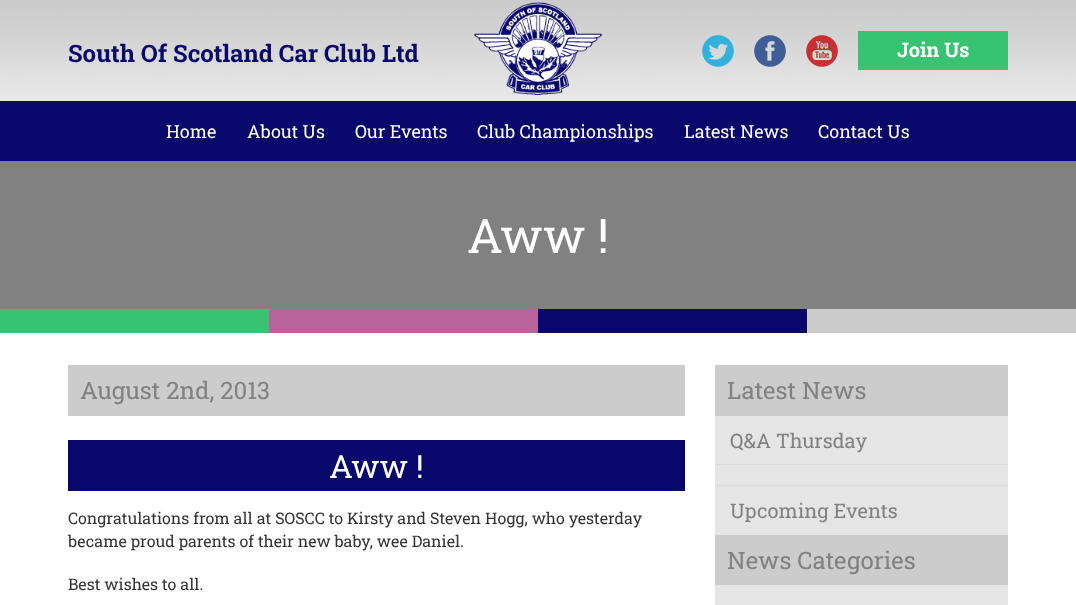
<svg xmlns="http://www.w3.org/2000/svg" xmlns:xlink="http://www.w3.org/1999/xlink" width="1076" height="605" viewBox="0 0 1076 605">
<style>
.cls-1{font:bold 24px Roboto Slab;fill:#08076c}
.cls-2{font:bold 20px Roboto Slab;fill:#ffffff}
.cls-3{font:18px Roboto Slab;fill:#ffffff}
.cls-4{font:48px Roboto Slab;fill:#ffffff}
.cls-5{font:24px Roboto Slab;fill:#818181}
.cls-6{font:32px Roboto Slab;fill:#ffffff}
.cls-7{font:16px Roboto Slab;fill:#333333}
.cls-8{font:20px Roboto Slab;fill:#818181}
</style>
<rect width="100%" height="100%" fill="#ffffff"/>
<rect fill="#08076c" x="0" y="101" width="1076" height="60"/>
<image xlink:href="image0.png" x="0" y="0" width="1076" height="101"/>
<image xlink:href="image1.png" x="473" y="2" width="130" height="93"/>
<image xlink:href="image2.png" x="702" y="35" width="32" height="32"/>
<image xlink:href="image3.png" x="754" y="35" width="32" height="32"/>
<image xlink:href="image4.png" x="806" y="35" width="32" height="32"/>
<rect fill="#38c372" x="858" y="31" width="150" height="39"/>
<rect fill="#818181" x="0" y="161" width="1076" height="148"/>
<rect fill="#38c372" x="0" y="309" width="269" height="24"/>
<rect fill="#b86399" x="269" y="309" width="269" height="24"/>
<rect fill="#08076c" x="538" y="309" width="269" height="24"/>
<rect fill="#cccccc" x="807" y="309" width="269" height="24"/>
<rect fill="#cccccc" x="68" y="365" width="617" height="51"/>
<rect fill="#08076c" x="68" y="440" width="617" height="51"/>
<rect fill="#e5e5e5" x="715" y="416" width="293" height="189"/>
<rect fill="#cccccc" x="715" y="365" width="293" height="51"/>
<path fill="none" stroke="#d1d2d4" stroke-dasharray="1 1" d="M715 464.5H1008"/>
<path fill="none" stroke="#d1d2d4" stroke-dasharray="1 1" d="M715 485.5H1008"/>
<rect fill="#cccccc" x="715" y="535" width="293" height="50"/>
<text class="cls-1" x="68" y="62">South Of Scotland Car Club Ltd</text>
<text class="cls-2" x="897" y="57">Join Us</text>
<text class="cls-3" x="166" y="138">Home</text>
<text class="cls-3" x="247" y="138">About Us</text>
<text class="cls-3" x="355" y="138">Our Events</text>
<text class="cls-3" x="477" y="138">Club Championships</text>
<text class="cls-3" x="684" y="138">Latest News</text>
<text class="cls-3" x="818" y="138">Contact Us</text>
<text class="cls-4" x="467" y="253">Aww !</text>
<text class="cls-5" x="80" y="399">August 2nd, 2013</text>
<text class="cls-6" x="329" y="478">Aww !</text>
<text class="cls-7"><tspan x="68" y="524">Congratulations from all at SOSCC to Kirsty and Steven Hogg, who yesterday</tspan><tspan x="68" y="547">became proud parents of their new baby, wee Daniel.</tspan></text>
<text class="cls-7" x="68" y="590">Best wishes to all.</text>
<text class="cls-5" x="727" y="399">Latest News</text>
<text class="cls-8" x="730" y="448">Q&amp;A Thursday</text>
<text class="cls-8" x="730" y="518">Upcoming Events</text>
<text class="cls-5" x="727" y="569">News Categories</text>
</svg>
